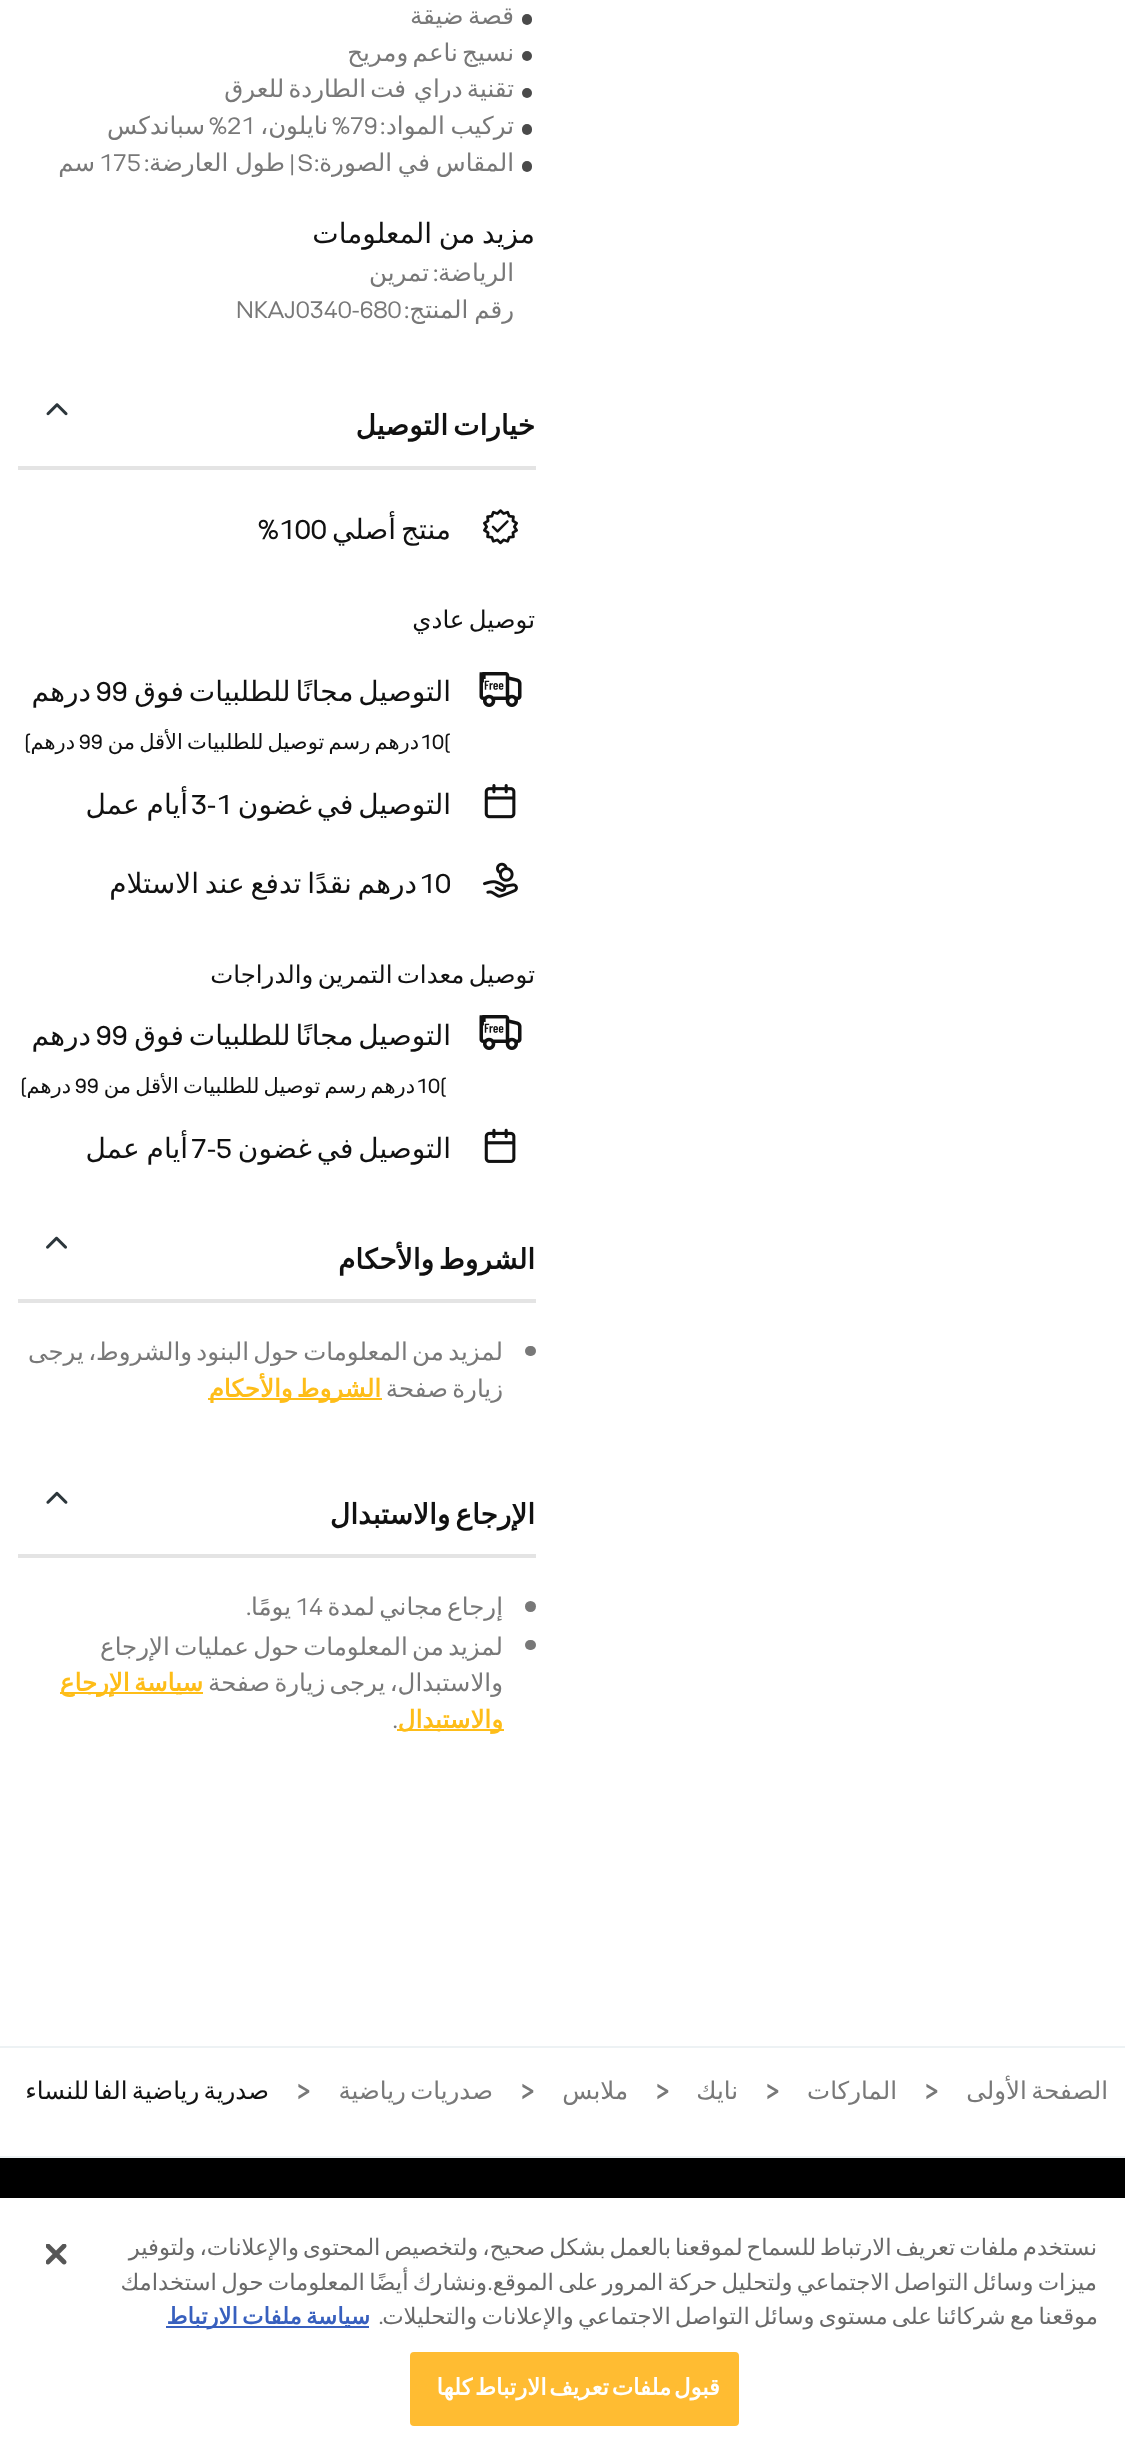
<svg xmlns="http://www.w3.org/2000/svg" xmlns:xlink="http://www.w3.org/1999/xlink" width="1125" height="2453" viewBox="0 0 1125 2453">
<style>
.cls-1{font:24.5px DejaVu Sans;direction:rtl;fill:#787878}
.cls-2{font:24.5px 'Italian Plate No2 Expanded';direction:rtl;fill:#787878}
.cls-3{font:24.5px 'Italian Plate No2 Expanded';fill:#787878}
.cls-4{font:28px DejaVu Sans;direction:rtl;fill:#111111}
.cls-5{font:bold 28px DejaVu Sans;direction:rtl;fill:#111111}
.cls-6{font:500 28px 'Italian Plate No2 Expanded';fill:#111111}
.cls-7{font:24.5px DejaVu Sans;direction:rtl;fill:#111111}
.cls-8{font:21px DejaVu Sans;direction:rtl;fill:#111111}
.cls-9{font:500 21px 'Italian Plate No2 Expanded';fill:#111111}
.cls-10{font:500 21px 'Italian Plate No2 Expanded';direction:rtl;fill:#111111}
.cls-11{font:bold 24.5px DejaVu Sans;direction:rtl;fill:#febd18}
.cls-12{font:bold 28px 'Italian Plate No2 Expanded';fill:#787878}
.cls-13{font:22.75px DejaVu Sans;direction:rtl;fill:#696969}
.cls-14{font:22.75px 'Italian Plate No2 Expanded';direction:rtl;fill:#696969}
.cls-15{font:bold 22.75px DejaVu Sans;direction:rtl;fill:#3860be}
.cls-16{font:bold 22.75px DejaVu Sans;letter-spacing:0.25px;direction:rtl;fill:#ffffff}
</style>
<defs>
<clipPath id="clip1"><rect x="84" y="2233" width="1013" height="102"/></clipPath>
</defs>
<rect width="100%" height="100%" fill="#ffffff"/>
<rect fill="#4a4a4a" x="522" y="14" width="10" height="11" rx="5"/>
<circle fill="#4a4a4a" cx="527" cy="56" r="5"/>
<circle fill="#4a4a4a" cx="527" cy="93" r="5"/>
<rect fill="#4a4a4a" x="522" y="124" width="10" height="11" rx="5"/>
<rect fill="#4a4a4a" x="522" y="161" width="10" height="11" rx="5"/>
<rect fill="#e4e4e4" x="18" y="466" width="518" height="4"/>
<image xlink:href="image0.png" x="46" y="403" width="22" height="13"/>
<image xlink:href="image1.png" x="483" y="509" width="35" height="36"/>
<image xlink:href="image2.png" x="479" y="672" width="43" height="35"/>
<image xlink:href="image3.png" x="484" y="784" width="32" height="35"/>
<image xlink:href="image4.png" x="483" y="862" width="35" height="36"/>
<image xlink:href="image2.png" x="479" y="1015" width="43" height="35"/>
<image xlink:href="image5.png" x="484" y="1128" width="32" height="35"/>
<rect fill="#e4e4e4" x="18" y="1299" width="518" height="4"/>
<image xlink:href="image6.png" x="46" y="1236" width="21" height="13"/>
<rect fill="#787878" x="525" y="1346" width="11" height="10" rx="5"/>
<rect fill="#febd18" x="208" y="1398" width="174" height="2"/>
<rect fill="#e4e4e4" x="18" y="1554" width="518" height="4"/>
<image xlink:href="image7.png" x="46" y="1491" width="22" height="13"/>
<circle fill="#787878" cx="530.5" cy="1606.5" r="5.5"/>
<rect fill="#787878" x="525" y="1640" width="11" height="10" rx="5"/>
<rect fill="#febd18" x="60" y="1692" width="143" height="2"/>
<rect fill="#febd18" x="397" y="1729" width="107" height="2"/>
<rect fill="#edf2f4" x="0" y="2046" width="1125" height="2"/>
<rect fill="#edf2f4" x="0" y="2156" width="1125" height="2"/>
<rect fill="#000000" x="0" y="2158" width="1125" height="40"/>
<rect fill="#3860be" x="166" y="2326" width="203" height="2"/>
<rect fill="#ffbc32" stroke="#ffbc32" stroke-width="2" x="411" y="2353" width="327" height="72" rx="3"/>
<image xlink:href="image8.png" x="46" y="2244" width="21" height="21"/>
<text class="cls-1"><tspan x="514" y="24" word-spacing="-3.5">قصة ضيقة</tspan><tspan x="514" y="61" word-spacing="-3.5">نسيج ناعم ومريح</tspan><tspan x="514" y="97" word-spacing="-3.5">تقنية دراي</tspan></text>
<text class="cls-1" x="406" y="97" word-spacing="-3.5">فت الطاردة للعرق</text>
<text class="cls-1" x="514" y="134" word-spacing="-2">تركيب المواد</text>
<text class="cls-2" x="385" y="134">:</text>
<text class="cls-3" x="350" y="134">79</text>
<text class="cls-2" x="350" y="134">%</text>
<text class="cls-1" x="328" y="134">نايلون،</text>
<text class="cls-3" x="227" y="134">21</text>
<text class="cls-2" x="227" y="134">%</text>
<text class="cls-1" x="205" y="134">سباندكس</text>
<text class="cls-1" x="514" y="171" word-spacing="-2">المقاس في الصورة</text>
<text class="cls-2" x="319" y="171">:</text>
<text class="cls-3" x="298" y="171">S</text>
<text class="cls-2" x="295" y="171">|</text>
<text class="cls-1" x="285" y="171" word-spacing="-1">طول العارضة</text>
<text class="cls-2" x="149" y="171">:</text>
<text class="cls-3" x="99" y="171">175</text>
<text class="cls-1" x="95" y="171">سم</text>
<text class="cls-4" x="535" y="243" word-spacing="-2">مزيد من المعلومات</text>
<text class="cls-1" x="514" y="281">الرياضة</text>
<text class="cls-2" x="438" y="281">:</text>
<text class="cls-1" x="429" y="281">تمرين</text>
<text class="cls-1" x="514" y="318" word-spacing="-2">رقم المنتج</text>
<text class="cls-2" x="409" y="318">:</text>
<text class="cls-3" x="236" y="318">NKAJ0340-680</text>
<text class="cls-5" x="535" y="435" word-spacing="-4">خيارات التوصيل</text>
<text class="cls-4" x="451" y="539" word-spacing="-4">منتج أصلي</text>
<text class="cls-6" x="258" y="539">%100</text>
<text class="cls-7" x="535" y="628" word-spacing="-3.5">توصيل عادي</text>
<text class="cls-4" x="451" y="701" word-spacing="-4">التوصيل مجانًا للطلبيات فوق</text>
<text class="cls-6" x="96" y="701">99</text>
<text class="cls-4" x="91" y="701">درهم</text>
<text class="cls-8" x="419" y="749" word-spacing="-2.5">درهم رسم توصيل للطلبيات الأقل من</text>
<text class="cls-9" x="420" y="749">10(</text>
<text class="cls-9" x="79" y="749">99</text>
<text class="cls-8" x="75" y="749">درهم</text>
<text class="cls-10" x="31" y="749">)</text>
<text class="cls-4" x="451" y="814" word-spacing="-4">التوصيل في غضون</text>
<text class="cls-6" x="191" y="814">3-1</text>
<text class="cls-4" x="188" y="814" word-spacing="-2">أيام عمل</text>
<text class="cls-4" x="417" y="893" word-spacing="-3">درهم نقدًا تدفع عند الاستلام</text>
<text class="cls-6" x="419" y="893">10</text>
<text class="cls-7" x="535" y="983" word-spacing="-3.5">توصيل معدات التمرين والدراجات</text>
<text class="cls-4" x="451" y="1045" word-spacing="-4">التوصيل مجانًا للطلبيات فوق</text>
<text class="cls-6" x="96" y="1045">99</text>
<text class="cls-4" x="91" y="1045">درهم</text>
<text class="cls-8" x="415" y="1093" word-spacing="-2.5">درهم رسم توصيل للطلبيات الأقل من</text>
<text class="cls-9" x="416" y="1093">10(</text>
<text class="cls-9" x="75" y="1093">99</text>
<text class="cls-8" x="71" y="1093">درهم</text>
<text class="cls-10" x="27" y="1093">)</text>
<text class="cls-4" x="451" y="1158" word-spacing="-4">التوصيل في غضون</text>
<text class="cls-6" x="191" y="1158">7-5</text>
<text class="cls-4" x="188" y="1158" word-spacing="-2">أيام عمل</text>
<text class="cls-5" x="535" y="1269" word-spacing="-4">الشروط والأحكام</text>
<text class="cls-1"><tspan x="503" y="1360" word-spacing="-3.5">لمزيد من المعلومات حول البنود والشروط، يرجى</tspan><tspan x="503" y="1397" word-spacing="-3.5">زيارة صفحة</tspan></text>
<text class="cls-11" x="381" y="1397" word-spacing="-3.5">الشروط والأحكام</text>
<text class="cls-5" x="535" y="1524" word-spacing="-4">الإرجاع والاستبدال</text>
<text class="cls-1" x="503" y="1615" word-spacing="-3.5">إرجاع مجاني لمدة</text>
<text class="cls-3" x="295" y="1615">14</text>
<text class="cls-1" x="291" y="1615">يومًا</text>
<text class="cls-2" x="251" y="1615">.</text>
<text class="cls-1"><tspan x="503" y="1655" word-spacing="-3.5">لمزيد من المعلومات حول عمليات الإرجاع</tspan><tspan x="503" y="1691" word-spacing="-3.5">والاستبدال، يرجى زيارة صفحة</tspan></text>
<text class="cls-11" x="203" y="1691" word-spacing="-3.5">سياسة الإرجاع</text>
<text class="cls-11" x="503" y="1728">والاستبدال</text>
<text class="cls-3" x="393" y="1728">.</text>
<text class="cls-1" x="1108" y="2099" word-spacing="-3.5">الصفحة الأولى</text>
<text class="cls-12" x="925" y="2099">&gt;</text>
<text class="cls-1" x="897" y="2099">الماركات</text>
<text class="cls-12" x="766" y="2099">&gt;</text>
<text class="cls-1" x="738" y="2099">نايك</text>
<text class="cls-12" x="656" y="2099">&gt;</text>
<text class="cls-1" x="628" y="2099">ملابس</text>
<text class="cls-12" x="521" y="2099">&gt;</text>
<text class="cls-1" x="493" y="2099" word-spacing="-3.5">صدريات رياضية</text>
<text class="cls-12" x="297" y="2099">&gt;</text>
<text class="cls-7" x="269" y="2099" word-spacing="-3.5">صدرية رياضية الفا للنساء</text>
<g clip-path="url(#clip1)">
<text class="cls-13" x="1097" y="2255" word-spacing="-3.25">نستخدم ملفات تعريف الارتباط للسماح لموقعنا بالعمل بشكل صحيح، ولتخصيص المحتوى والإعلانات، ولتوفير</text>
</g>
<text class="cls-13" x="487" y="2290" word-spacing="-3">ونشارك أيضًا المعلومات حول استخدامك</text>
<g clip-path="url(#clip1)">
<text class="cls-13" x="1097" y="2290" word-spacing="-3">ميزات وسائل التواصل الاجتماعي ولتحليل حركة المرور على الموقع</text>
</g>
<text class="cls-14" x="492" y="2290">.</text>
<g clip-path="url(#clip1)">
<text class="cls-13" x="1098" y="2324" word-spacing="-3">موقعنا مع شركائنا على مستوى وسائل التواصل الاجتماعي والإعلانات والتحليلات</text>
</g>
<text class="cls-14" x="383" y="2324">.</text>
<text class="cls-15" x="370" y="2324" word-spacing="-3">سياسة ملفات الارتباط</text>
<text class="cls-16" x="720" y="2395" word-spacing="-4.5">قبول ملفات تعريف الارتباط كلها</text>
</svg>
